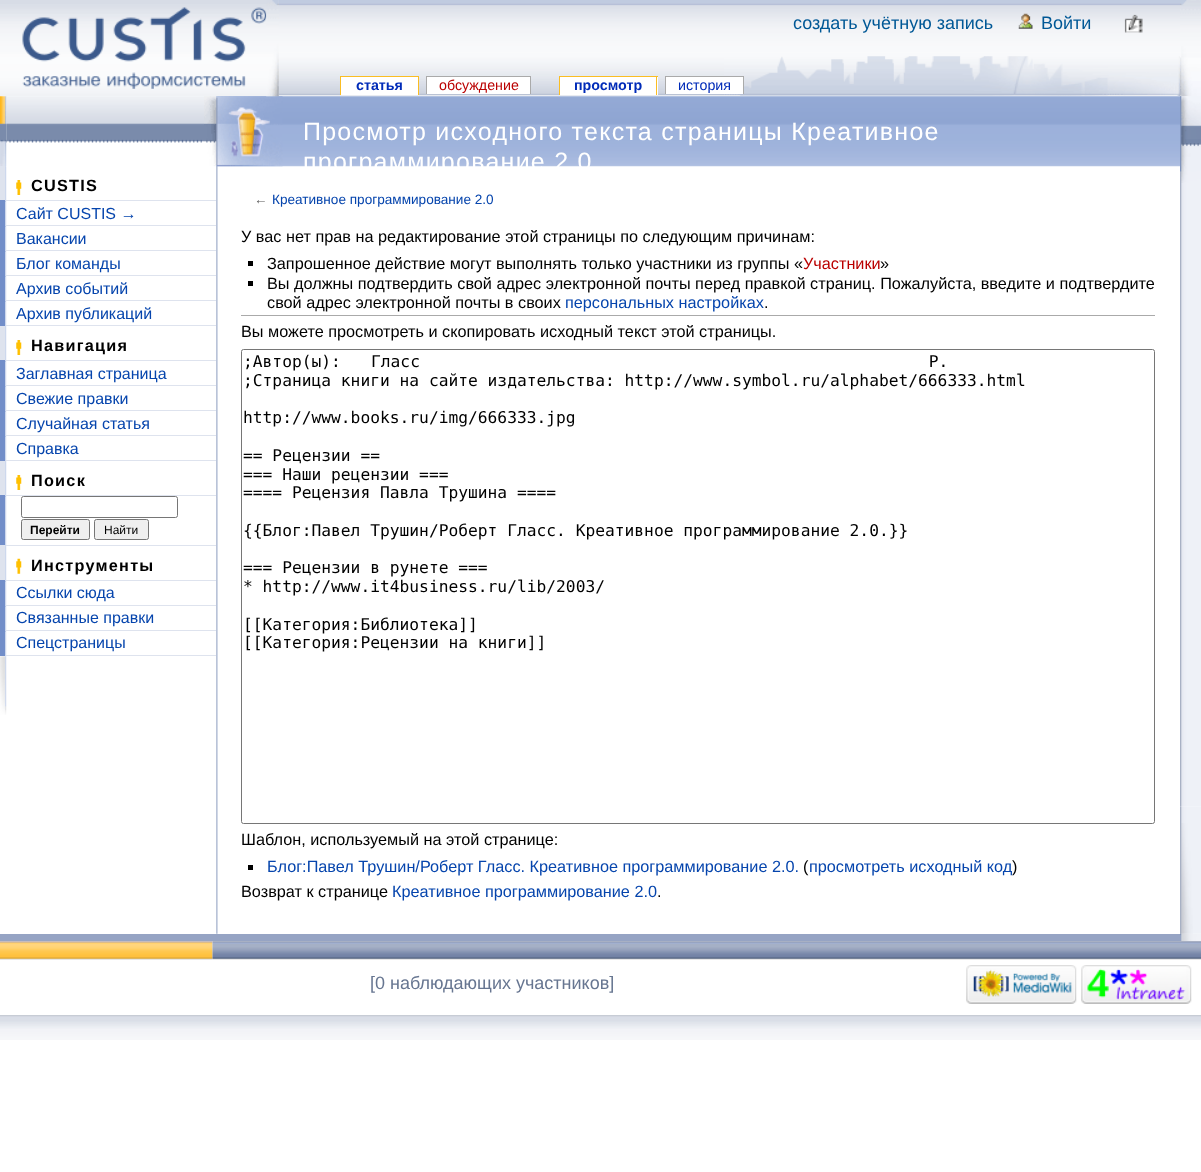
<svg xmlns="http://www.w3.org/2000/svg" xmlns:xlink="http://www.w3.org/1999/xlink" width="1201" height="1172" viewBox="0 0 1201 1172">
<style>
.cls-1{font:18px Liberation Sans;fill:#005896}
.cls-2{font:bold 14.25px Liberation Sans;fill:#002bb8}
.cls-3{font:14.25px Liberation Sans;fill:#ba0000}
.cls-4{font:14.25px Liberation Sans;fill:#002bb8}
.cls-5{font:bold 16.25px Liberation Sans;letter-spacing:1.25px;fill:#000000}
.cls-6{font:16px Liberation Sans;fill:#0645ad}
.cls-7{font:bold 12px Liberation Sans;fill:#000000}
.cls-8{font:12px Liberation Sans;fill:#000000}
.cls-9{font:25px Liberation Sans;letter-spacing:1.25px;fill:#ffffff}
.cls-10{font:13.6px Liberation Sans;fill:#545454}
.cls-11{font:13.6px Liberation Sans;fill:#0645ad}
.cls-12{font:16.25px Liberation Sans;fill:#000000}
.cls-13{font:16.25px Liberation Sans;fill:#ba0000}
.cls-14{font:16.25px Liberation Sans;fill:#0645ad}
.cls-15{font:16.25px DejaVu Sans Mono;fill:#000000}
.cls-16{font:18px Liberation Sans;fill:#677691}
</style>
<rect width="100%" height="100%" fill="#ffffff"/>
<image xlink:href="image0.png" x="0" y="0" width="1201" height="97"/>
<image xlink:href="image1.png" x="0" y="0" width="279" height="96"/>
<image xlink:href="image2.png" x="22" y="7" width="245" height="82"/>
<rect fill="#ffffff" x="216" y="96" width="964" height="1"/>
<image xlink:href="image19.png" x="216" y="96" width="2" height="838"/>
<image xlink:href="image20.png" x="216" y="96" width="964" height="71"/>
<image xlink:href="image21.png" x="216" y="96" width="67" height="71"/>
<image xlink:href="image3.png" x="266" y="0" width="13" height="97"/>
<image xlink:href="image4.png" x="1018" y="13" width="15" height="16"/>
<image xlink:href="image5.png" x="1124" y="14" width="19" height="19"/>
<image xlink:href="image22.png" x="1180" y="96" width="21" height="711"/>
<image xlink:href="image6.png" x="1180" y="0" width="21" height="97"/>
<image xlink:href="image7.png" x="724" y="56" width="456" height="40"/>
<rect fill="#ffffff" x="341" y="77" width="77" height="18"/>
<rect fill="#fabd23" x="340" y="76" width="79" height="1"/>
<rect fill="#fabd23" x="418" y="76" width="1" height="19"/>
<rect fill="#fabd23" x="340" y="76" width="1" height="19"/>
<rect fill="#ffffff" x="427" y="77" width="103" height="17"/>
<rect fill="#aaaaaa" x="426" y="76" width="105" height="1"/>
<rect fill="#aaaaaa" x="530" y="76" width="1" height="18"/>
<rect fill="#aaaaaa" x="426" y="76" width="1" height="18"/>
<rect fill="#ffffff" x="560" y="77" width="98" height="18"/>
<rect fill="#fabd23" x="559" y="76" width="99" height="1"/>
<rect fill="#fabd23" x="656" y="76" width="1" height="19"/>
<rect fill="#fabd23" x="559" y="76" width="1" height="19"/>
<rect fill="#ffffff" x="666" y="77" width="77" height="17"/>
<rect fill="#aaaaaa" x="665" y="76" width="79" height="1"/>
<rect fill="#aaaaaa" x="743" y="76" width="1" height="18"/>
<rect fill="#aaaaaa" x="665" y="76" width="1" height="18"/>
<image xlink:href="image9.png" x="6" y="96" width="210" height="47"/>
<image xlink:href="image8.png" x="0" y="96" width="7" height="70"/>
<image xlink:href="image10.png" x="204" y="96" width="13" height="71"/>
<rect fill="#dee3ee" x="0" y="166" width="6" height="34"/>
<image xlink:href="image11.png" x="5" y="166" width="2" height="34"/>
<image xlink:href="image12.png" x="16" y="180" width="6" height="15"/>
<rect fill="#728ec9" x="0" y="200" width="6" height="1"/>
<image xlink:href="image13.png" x="5" y="200" width="2" height="2"/>
<rect fill="#dee3ee" x="6" y="200" width="210" height="1"/>
<rect fill="#728ec9" x="0" y="201" width="6" height="25"/>
<image xlink:href="image14.png" x="5" y="201" width="2" height="24"/>
<image xlink:href="image13.png" x="5" y="225" width="2" height="2"/>
<rect fill="#dee3ee" x="6" y="225" width="210" height="1"/>
<rect fill="#728ec9" x="0" y="226" width="6" height="25"/>
<image xlink:href="image14.png" x="5" y="226" width="2" height="24"/>
<image xlink:href="image13.png" x="5" y="250" width="2" height="2"/>
<rect fill="#dee3ee" x="6" y="250" width="210" height="1"/>
<rect fill="#728ec9" x="0" y="251" width="6" height="25"/>
<image xlink:href="image14.png" x="5" y="251" width="2" height="24"/>
<image xlink:href="image13.png" x="5" y="275" width="2" height="2"/>
<rect fill="#dee3ee" x="6" y="275" width="210" height="1"/>
<rect fill="#728ec9" x="0" y="276" width="6" height="25"/>
<image xlink:href="image14.png" x="5" y="276" width="2" height="24"/>
<image xlink:href="image13.png" x="5" y="300" width="2" height="2"/>
<rect fill="#dee3ee" x="6" y="300" width="210" height="1"/>
<rect fill="#728ec9" x="0" y="301" width="6" height="25"/>
<image xlink:href="image14.png" x="5" y="301" width="2" height="24"/>
<image xlink:href="image13.png" x="5" y="325" width="2" height="2"/>
<rect fill="#dee3ee" x="6" y="325" width="210" height="1"/>
<rect fill="#dee3ee" x="0" y="326" width="6" height="34"/>
<image xlink:href="image15.png" x="5" y="326" width="2" height="34"/>
<image xlink:href="image12.png" x="16" y="340" width="6" height="15"/>
<rect fill="#728ec9" x="0" y="360" width="6" height="1"/>
<image xlink:href="image13.png" x="5" y="360" width="2" height="2"/>
<rect fill="#dee3ee" x="6" y="360" width="210" height="1"/>
<rect fill="#728ec9" x="0" y="361" width="6" height="25"/>
<image xlink:href="image14.png" x="5" y="361" width="2" height="24"/>
<image xlink:href="image13.png" x="5" y="385" width="2" height="2"/>
<rect fill="#dee3ee" x="6" y="385" width="210" height="1"/>
<rect fill="#728ec9" x="0" y="386" width="6" height="25"/>
<image xlink:href="image14.png" x="5" y="386" width="2" height="24"/>
<image xlink:href="image13.png" x="5" y="410" width="2" height="2"/>
<rect fill="#dee3ee" x="6" y="410" width="210" height="1"/>
<rect fill="#728ec9" x="0" y="411" width="6" height="25"/>
<image xlink:href="image14.png" x="5" y="411" width="2" height="24"/>
<image xlink:href="image13.png" x="5" y="435" width="2" height="2"/>
<rect fill="#dee3ee" x="6" y="435" width="210" height="1"/>
<rect fill="#728ec9" x="0" y="436" width="6" height="25"/>
<image xlink:href="image14.png" x="5" y="436" width="2" height="24"/>
<image xlink:href="image13.png" x="5" y="460" width="2" height="2"/>
<rect fill="#dee3ee" x="6" y="460" width="210" height="1"/>
<rect fill="#dee3ee" x="0" y="461" width="6" height="34"/>
<image xlink:href="image15.png" x="5" y="461" width="2" height="34"/>
<image xlink:href="image12.png" x="16" y="475" width="6" height="15"/>
<rect fill="#728ec9" x="0" y="495" width="6" height="1"/>
<image xlink:href="image13.png" x="5" y="495" width="2" height="2"/>
<rect fill="#dee3ee" x="6" y="495" width="210" height="1"/>
<rect fill="#728ec9" x="0" y="496" width="6" height="49"/>
<image xlink:href="image16.png" x="5" y="496" width="2" height="49"/>
<rect fill="none" stroke="#767676" x="21.5" y="496.5" width="156" height="21" rx="2"/>
<rect fill="#efefef" stroke="#767676" x="21.5" y="519.5" width="68" height="20" rx="2"/>
<rect fill="#efefef" stroke="#767676" x="94.5" y="519.5" width="54" height="20" rx="2"/>
<rect fill="#dee3ee" x="0" y="545" width="6" height="1"/>
<image xlink:href="image13.png" x="5" y="545" width="2" height="2"/>
<rect fill="#dee3ee" x="6" y="545" width="210" height="1"/>
<rect fill="#dee3ee" x="0" y="546" width="6" height="34"/>
<image xlink:href="image15.png" x="5" y="546" width="2" height="34"/>
<image xlink:href="image17.png" x="16" y="558" width="6" height="16"/>
<rect fill="#728ec9" x="0" y="580" width="6" height="1"/>
<image xlink:href="image13.png" x="5" y="580" width="2" height="2"/>
<rect fill="#dee3ee" x="6" y="580" width="210" height="1"/>
<rect fill="#728ec9" x="0" y="581" width="6" height="25"/>
<image xlink:href="image14.png" x="5" y="581" width="2" height="24"/>
<image xlink:href="image13.png" x="5" y="605" width="2" height="2"/>
<rect fill="#dee3ee" x="6" y="605" width="210" height="1"/>
<rect fill="#728ec9" x="0" y="606" width="6" height="25"/>
<image xlink:href="image14.png" x="5" y="606" width="2" height="24"/>
<image xlink:href="image13.png" x="5" y="630" width="2" height="2"/>
<rect fill="#dee3ee" x="6" y="630" width="210" height="1"/>
<rect fill="#728ec9" x="0" y="631" width="6" height="25"/>
<image xlink:href="image14.png" x="5" y="631" width="2" height="24"/>
<image xlink:href="image13.png" x="5" y="655" width="2" height="2"/>
<rect fill="#dee3ee" x="6" y="655" width="210" height="1"/>
<image xlink:href="image18.png" x="0" y="656" width="7" height="59"/>
<rect fill="#000000" x="248" y="261" width="5" height="5"/>
<rect fill="#000000" x="248" y="281" width="5" height="5"/>
<rect fill="#aaaaaa" x="241" y="315" width="914" height="1"/>
<rect fill="none" stroke="#767676" x="241.5" y="349.5" width="913" height="474" rx="2"/>
<rect fill="#000000" x="248" y="865" width="5" height="5"/>
<image xlink:href="image23.png" x="1180" y="96" width="21" height="87"/>
<image xlink:href="image24.png" x="1180" y="806" width="21" height="128"/>
<image xlink:href="image26.png" x="1180" y="933" width="21" height="8"/>
<image xlink:href="image25.png" x="1180" y="823" width="13" height="111"/>
<rect fill="#96a4c4" x="0" y="934" width="1180" height="7"/>
<rect fill="#fbfcfd" x="0" y="941" width="1201" height="19"/>
<image xlink:href="image27.png" x="0" y="941" width="213" height="19"/>
<image xlink:href="image28.png" x="212" y="941" width="968" height="19"/>
<image xlink:href="image29.png" x="1180" y="941" width="21" height="19"/>
<image xlink:href="image30.png" x="966" y="965" width="111" height="39"/>
<image xlink:href="image31.png" x="1081" y="965" width="111" height="39"/>
<image xlink:href="image32.png" x="0" y="1015" width="1201" height="25"/>
<text class="cls-1" x="793" y="29">создать учётную запись</text>
<text class="cls-1" x="1041" y="29">Войти</text>
<text class="cls-2" x="356" y="90">статья</text>
<text class="cls-3" x="439" y="90">обсуждение</text>
<text class="cls-2" x="574" y="90">просмотр</text>
<text class="cls-4" x="678" y="90">история</text>
<text class="cls-5" x="31" y="191">CUSTIS</text>
<text class="cls-6"><tspan x="16" y="219">Сайт CUSTIS →</tspan><tspan x="16" y="244">Вакансии</tspan><tspan x="16" y="269">Блог команды</tspan><tspan x="16" y="294">Архив событий</tspan><tspan x="16" y="319">Архив публикаций</tspan></text>
<text class="cls-5" x="31" y="351">Навигация</text>
<text class="cls-6"><tspan x="16" y="379">Заглавная страница</tspan><tspan x="16" y="404">Свежие правки</tspan><tspan x="16" y="429">Случайная статья</tspan><tspan x="16" y="454">Справка</tspan></text>
<text class="cls-5" x="31" y="486">Поиск</text>
<text class="cls-7" x="30" y="534">Перейти</text>
<text class="cls-8" x="104" y="534">Найти</text>
<text class="cls-5" x="31" y="571">Инструменты</text>
<text class="cls-6"><tspan x="16" y="598">Ссылки сюда</tspan><tspan x="16" y="623">Связанные правки</tspan><tspan x="16" y="648">Спецстраницы</tspan></text>
<text class="cls-9"><tspan x="303" y="140">Просмотр исходного текста страницы Креативное</tspan><tspan x="303" y="170">программирование 2.0</tspan></text>
<text class="cls-10" x="254" y="204">←</text>
<text class="cls-11" x="272" y="204">Креативное программирование 2.0</text>
<text class="cls-12" x="241" y="242">У вас нет прав на редактирование этой страницы по следующим причинам:</text>
<text class="cls-12" x="267" y="269">Запрошенное действие могут выполнять только участники из группы «</text>
<text class="cls-13" x="803" y="269">Участники</text>
<text class="cls-12" x="880" y="269">»</text>
<text class="cls-12"><tspan x="267" y="289">Вы должны подтвердить свой адрес электронной почты перед правкой страниц. Пожалуйста, введите и подтвердите</tspan><tspan x="267" y="308">свой адрес электронной почты в своих</tspan></text>
<text class="cls-14" x="565" y="308">персональных настройках</text>
<text class="cls-12" x="764" y="308">.</text>
<text class="cls-12" x="241" y="337">Вы можете просмотреть и скопировать исходный текст этой страницы.</text>
<text class="cls-15" x="243" y="367">;Автор(ы):</text>
<text class="cls-15" x="371" y="367" word-spacing="499">Гласс Р.</text>
<text class="cls-15" x="243" y="386">;Страница книги на сайте издательства: http://www.symbol.ru/alphabet/666333.html</text>
<text class="cls-15" x="243" y="423">http://www.books.ru/img/666333.jpg</text>
<text class="cls-15"><tspan x="243" y="461">== Рецензии ==</tspan><tspan x="243" y="480">=== Наши рецензии ===</tspan><tspan x="243" y="498">==== Рецензия Павла Трушина ====</tspan></text>
<text class="cls-15" x="243" y="536">{{Блог:Павел Трушин/Роберт Гласс. Креативное программирование 2.0.}}</text>
<text class="cls-15"><tspan x="243" y="573">=== Рецензии в рунете ===</tspan><tspan x="243" y="592">* http://www.it4business.ru/lib/2003/</tspan></text>
<text class="cls-15"><tspan x="243" y="630">[[Категория:Библиотека]]</tspan><tspan x="243" y="648">[[Категория:Рецензии на книги]]</tspan></text>
<text class="cls-12" x="241" y="845">Шаблон, используемый на этой странице:</text>
<text class="cls-14" x="267" y="872">Блог:Павел Трушин/Роберт Гласс. Креативное программирование 2.0.</text>
<text class="cls-12" x="803" y="872">(</text>
<text class="cls-14" x="809" y="872">просмотреть исходный код</text>
<text class="cls-12" x="1012" y="872">)</text>
<text class="cls-12" x="241" y="897">Возврат к странице</text>
<text class="cls-14" x="392" y="897">Креативное программирование 2.0</text>
<text class="cls-12" x="657" y="897">.</text>
<text class="cls-16" x="370" y="989">[0 наблюдающих участников]</text>
</svg>
